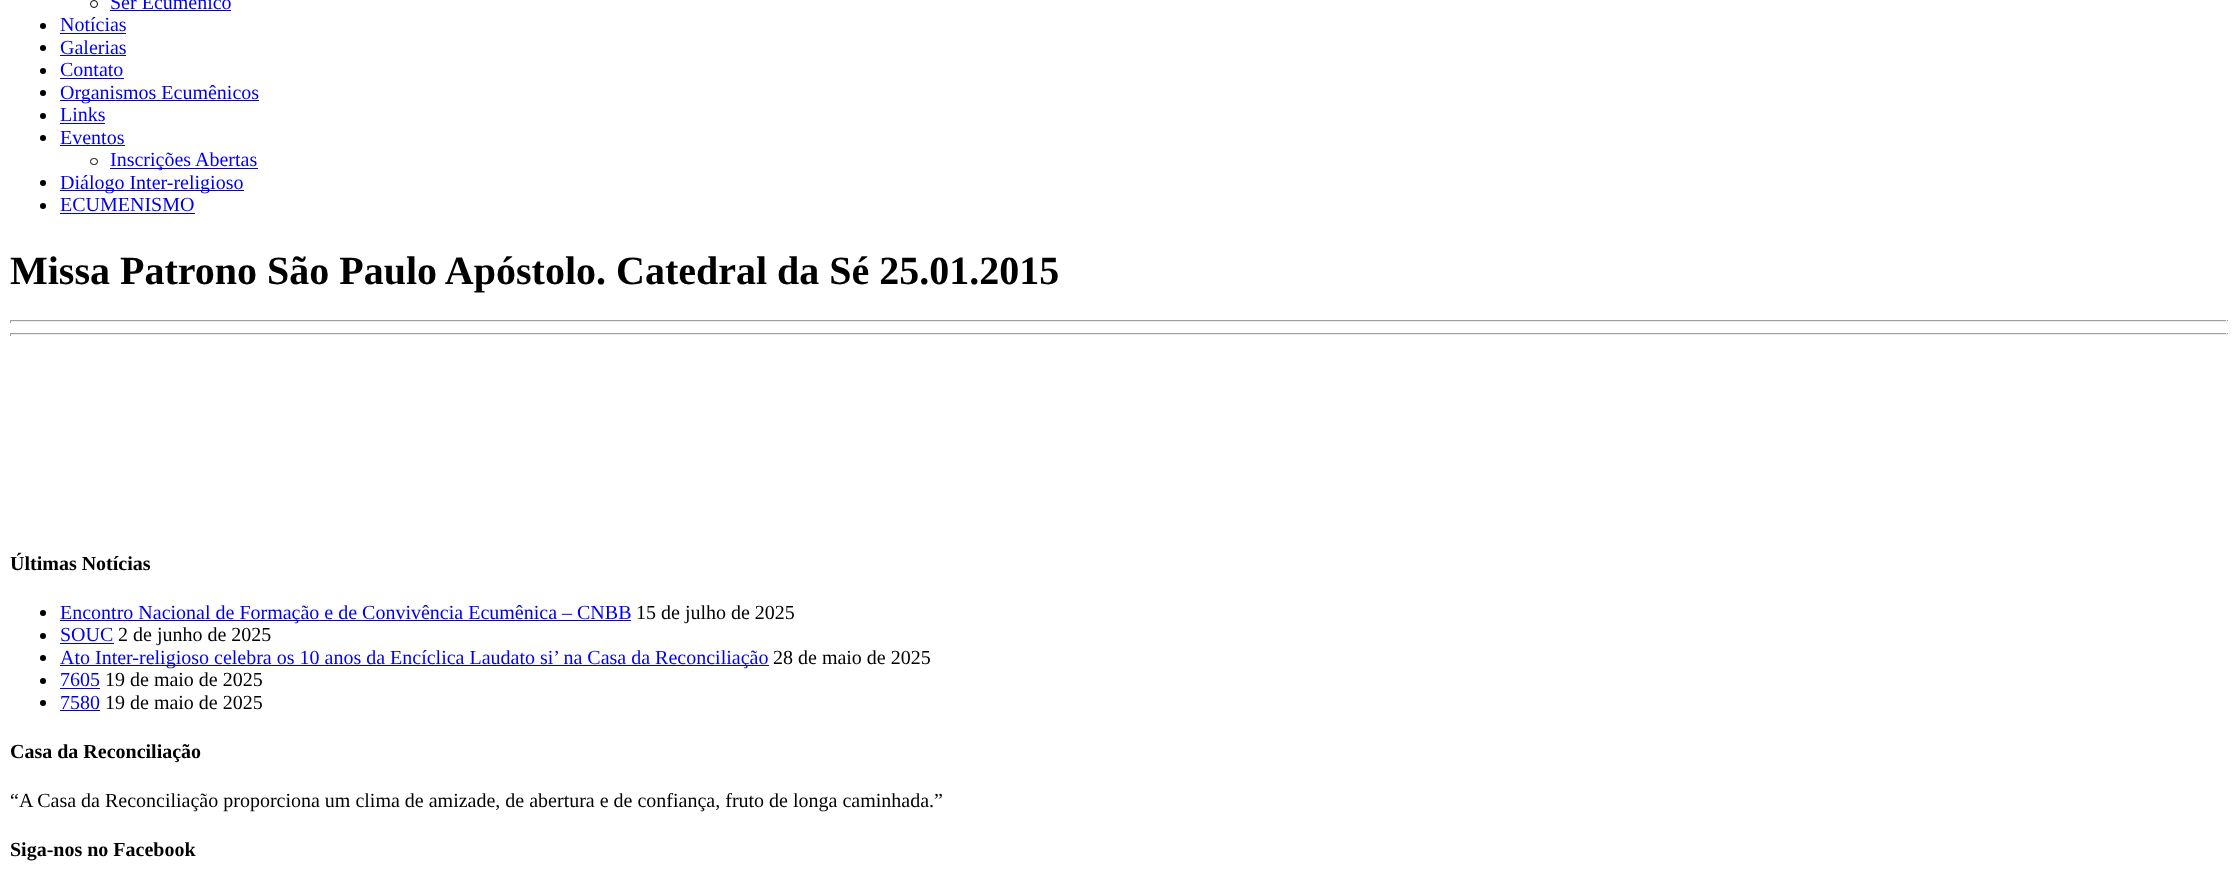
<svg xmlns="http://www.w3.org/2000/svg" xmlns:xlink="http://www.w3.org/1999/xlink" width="2237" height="881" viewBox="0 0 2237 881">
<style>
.cls-1{font:20px Liberation Serif;fill:#0000ee}
.cls-2{font:bold 40px Liberation Serif;fill:#000000}
.cls-3{font:bold 20px Liberation Serif;fill:#000000}
.cls-4{font:20px Liberation Serif;fill:#000000}
</style>
<rect width="100%" height="100%" fill="#ffffff"/>
<circle fill="none" stroke="#000000" cx="94" cy="4" r="3.5"/>
<rect fill="#0000ee" x="110" y="10" width="121" height="1"/>
<circle fill="#000000" cx="43" cy="26" r="3"/>
<rect fill="#0000ee" x="60" y="33" width="66" height="1"/>
<circle fill="#000000" cx="43" cy="48" r="3"/>
<rect fill="#0000ee" x="60" y="55" width="66" height="1"/>
<circle fill="#000000" cx="43" cy="71" r="3"/>
<rect fill="#0000ee" x="60" y="78" width="64" height="1"/>
<circle fill="#000000" cx="43" cy="93" r="3"/>
<rect fill="#0000ee" x="60" y="100" width="199" height="1"/>
<circle fill="#000000" cx="43" cy="116" r="3"/>
<rect fill="#0000ee" x="60" y="123" width="45" height="1"/>
<circle fill="#000000" cx="43" cy="138" r="3"/>
<rect fill="#0000ee" x="60" y="145" width="65" height="1"/>
<rect fill="none" stroke="#000000" x="90.5" y="158.5" width="7" height="6" rx="3"/>
<rect fill="#0000ee" x="110" y="168" width="148" height="1"/>
<circle fill="#000000" cx="43" cy="183" r="3"/>
<rect fill="#0000ee" x="60" y="190" width="184" height="1"/>
<circle fill="#000000" cx="43" cy="206" r="3"/>
<rect fill="#0000ee" x="60" y="213" width="135" height="1"/>
<rect fill="#9f9f9f" x="10" y="320" width="2218" height="1"/>
<rect fill="#eeeeee" x="2226" y="320" width="1" height="3"/>
<rect fill="#eeeeee" x="10" y="321" width="2218" height="1"/>
<rect fill="#9f9f9f" x="10" y="320" width="1" height="3"/>
<rect fill="#9f9f9f" x="10" y="333" width="2218" height="1"/>
<rect fill="#eeeeee" x="2226" y="333" width="1" height="3"/>
<rect fill="#eeeeee" x="10" y="334" width="2218" height="1"/>
<rect fill="#9f9f9f" x="10" y="333" width="1" height="3"/>
<circle fill="#000000" cx="43" cy="613" r="3"/>
<rect fill="#0000ee" x="60" y="620" width="571" height="1"/>
<circle fill="#000000" cx="43" cy="636" r="3"/>
<rect fill="#0000ee" x="60" y="643" width="54" height="1"/>
<circle fill="#000000" cx="43" cy="658" r="3"/>
<rect fill="#0000ee" x="60" y="665" width="709" height="1"/>
<circle fill="#000000" cx="43" cy="681" r="3"/>
<rect fill="#0000ee" x="60" y="688" width="40" height="1"/>
<circle fill="#000000" cx="43" cy="703" r="3"/>
<rect fill="#0000ee" x="60" y="710" width="40" height="1"/>
<text class="cls-1" x="110" y="9">Ser Ecumênico</text>
<text class="cls-1"><tspan x="60" y="31">Notícias</tspan><tspan x="60" y="54">Galerias</tspan><tspan x="60" y="76">Contato</tspan><tspan x="60" y="99">Organismos Ecumênicos</tspan><tspan x="60" y="121">Links</tspan><tspan x="60" y="144">Eventos</tspan></text>
<text class="cls-1" x="110" y="166">Inscrições Abertas</text>
<text class="cls-1"><tspan x="60" y="189">Diálogo Inter-religioso</tspan><tspan x="60" y="211">ECUMENISMO</tspan></text>
<text class="cls-2" x="10" y="284">Missa Patrono São Paulo Apóstolo. Catedral da Sé 25.01.2015</text>
<text class="cls-3" x="10" y="570">Últimas Notícias</text>
<text class="cls-1" x="60" y="619">Encontro Nacional de Formação e de Convivência Ecumênica – CNBB</text>
<text class="cls-4" x="636" y="619">15 de julho de 2025</text>
<text class="cls-1" x="60" y="641">SOUC</text>
<text class="cls-4" x="118" y="641">2 de junho de 2025</text>
<text class="cls-1" x="60" y="664">Ato Inter-religioso celebra os 10 anos da Encíclica Laudato si’ na Casa da Reconciliação</text>
<text class="cls-4" x="773" y="664">28 de maio de 2025</text>
<text class="cls-1" x="60" y="686">7605</text>
<text class="cls-4" x="105" y="686">19 de maio de 2025</text>
<text class="cls-1" x="60" y="709">7580</text>
<text class="cls-4" x="105" y="709">19 de maio de 2025</text>
<text class="cls-3" x="10" y="758">Casa da Reconciliação</text>
<text class="cls-4" x="10" y="807">“A Casa da Reconciliação proporciona um clima de amizade, de abertura e de confiança, fruto de longa caminhada.”</text>
<text class="cls-3" x="10" y="856">Siga-nos no Facebook</text>
</svg>
